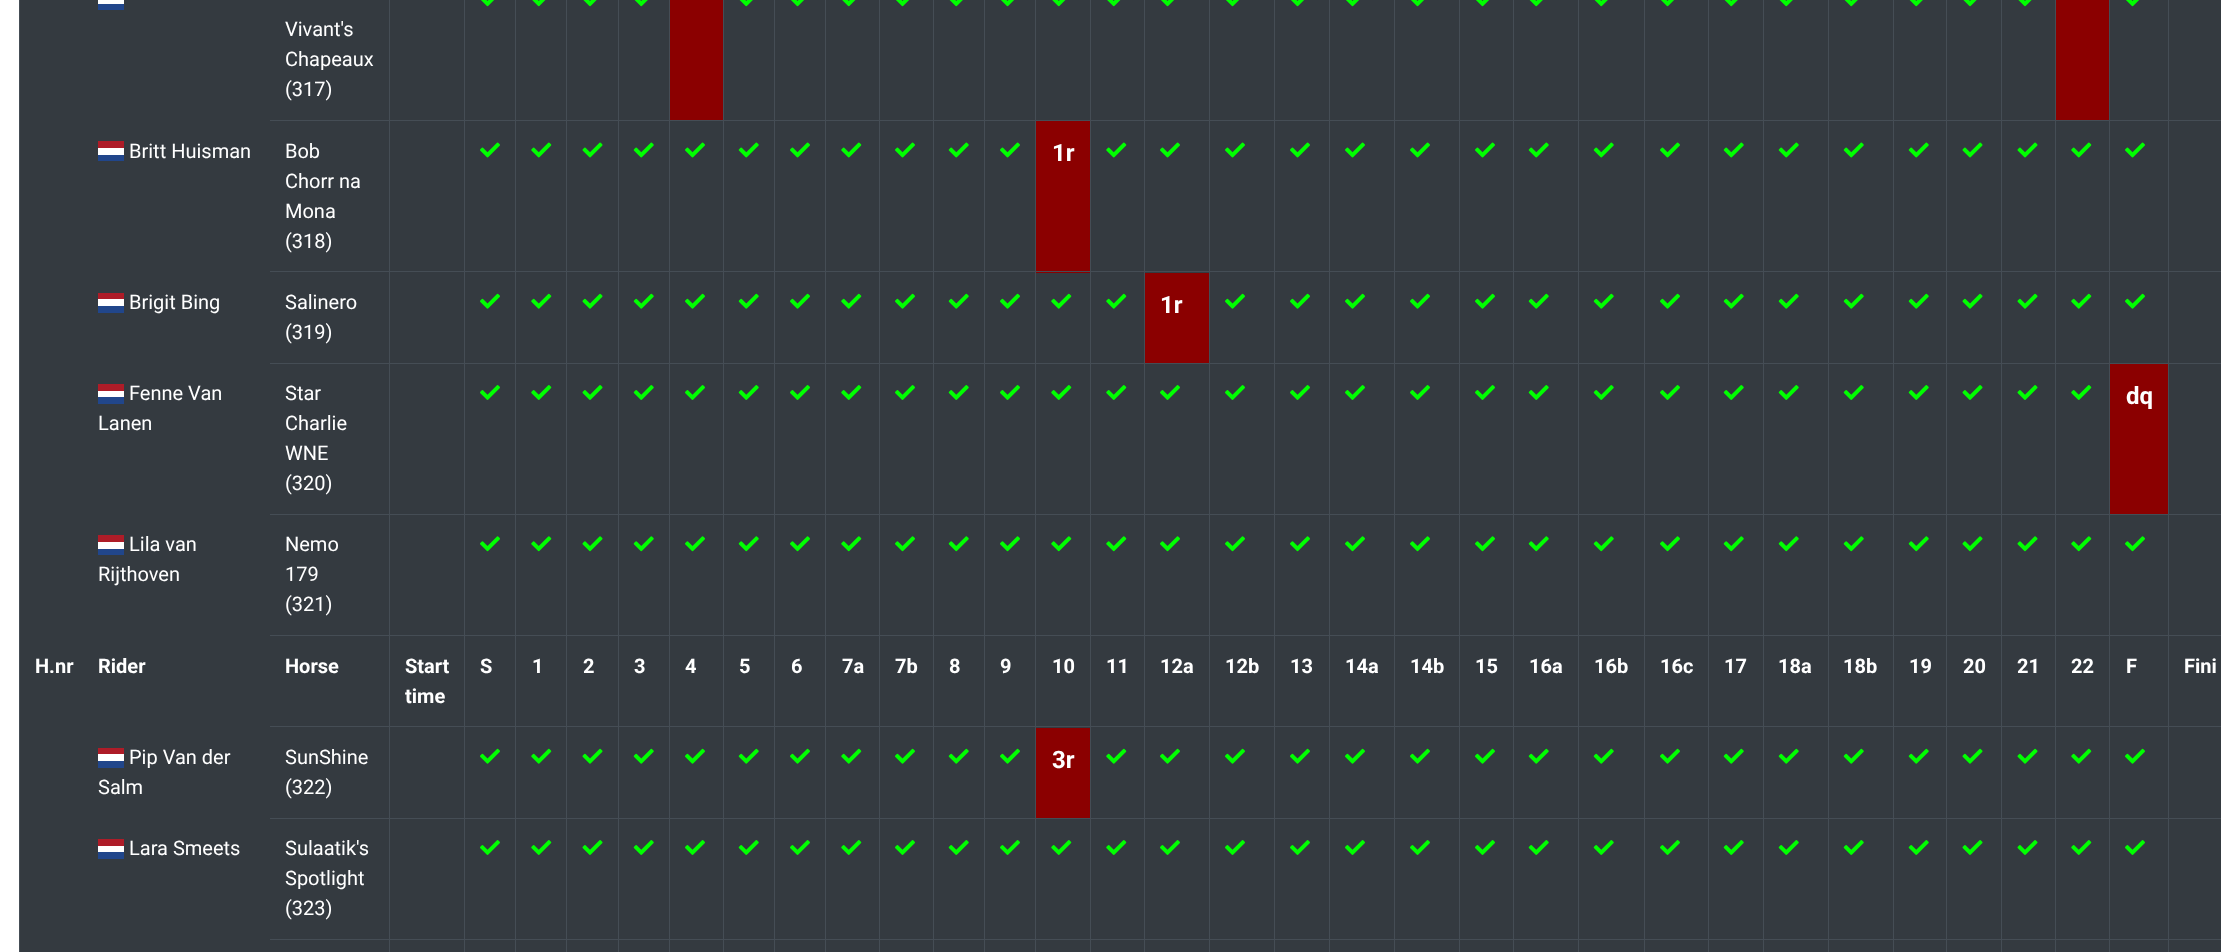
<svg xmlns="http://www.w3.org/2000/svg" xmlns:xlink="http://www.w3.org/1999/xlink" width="2240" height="952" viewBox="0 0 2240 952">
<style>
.cls-1{font:20px Roboto;fill:#ffffff}
.cls-2{font:bold 24px Roboto;fill:#ffffff}
.cls-3{font:bold 20px Roboto;fill:#ffffff}
</style>
<rect width="100%" height="100%" fill="#ffffff"/>
<rect fill="#343a40" x="270" y="0" width="1951" height="952"/>
<rect fill="#454d55" x="19" y="635" width="1" height="317"/>
<rect fill="#454d55" x="19" y="120" width="1" height="516"/>
<rect fill="#454d55" x="19" y="0" width="1" height="121"/>
<rect fill="#454d55" x="2168" y="120" width="53" height="1"/>
<rect fill="#454d55" x="2168" y="271" width="53" height="1"/>
<rect fill="#454d55" x="2168" y="363" width="53" height="1"/>
<rect fill="#454d55" x="2168" y="514" width="53" height="1"/>
<rect fill="#454d55" x="2168" y="635" width="53" height="1"/>
<rect fill="#454d55" x="2168" y="726" width="53" height="1"/>
<rect fill="#454d55" x="2168" y="818" width="53" height="1"/>
<rect fill="#454d55" x="2168" y="939" width="53" height="1"/>
<rect fill="#454d55" x="2168" y="939" width="1" height="13"/>
<rect fill="#454d55" x="2109" y="939" width="60" height="1"/>
<rect fill="#454d55" x="2168" y="818" width="1" height="122"/>
<rect fill="#454d55" x="2109" y="818" width="60" height="1"/>
<rect fill="#454d55" x="2168" y="726" width="1" height="93"/>
<rect fill="#454d55" x="2109" y="726" width="60" height="1"/>
<rect fill="#454d55" x="2168" y="635" width="1" height="93"/>
<rect fill="#454d55" x="2109" y="635" width="60" height="1"/>
<rect fill="#454d55" x="2168" y="514" width="1" height="122"/>
<rect fill="#454d55" x="2109" y="514" width="60" height="1"/>
<rect fill="#454d55" x="2168" y="363" width="1" height="152"/>
<rect fill="#454d55" x="2109" y="363" width="60" height="1"/>
<rect fill="#454d55" x="2168" y="271" width="1" height="93"/>
<rect fill="#454d55" x="2109" y="271" width="60" height="1"/>
<rect fill="#454d55" x="2168" y="120" width="1" height="153"/>
<rect fill="#454d55" x="2109" y="120" width="60" height="1"/>
<rect fill="#454d55" x="2109" y="939" width="1" height="13"/>
<rect fill="#454d55" x="2055" y="939" width="55" height="1"/>
<rect fill="#454d55" x="2109" y="818" width="1" height="122"/>
<rect fill="#454d55" x="2055" y="818" width="55" height="1"/>
<rect fill="#454d55" x="2109" y="726" width="1" height="93"/>
<rect fill="#454d55" x="2055" y="726" width="55" height="1"/>
<rect fill="#454d55" x="2109" y="635" width="1" height="93"/>
<rect fill="#454d55" x="2055" y="635" width="55" height="1"/>
<rect fill="#454d55" x="2109" y="514" width="1" height="122"/>
<rect fill="#454d55" x="2055" y="514" width="55" height="1"/>
<rect fill="#454d55" x="2109" y="363" width="1" height="152"/>
<rect fill="#454d55" x="2055" y="363" width="55" height="1"/>
<rect fill="#454d55" x="2109" y="271" width="1" height="93"/>
<rect fill="#454d55" x="2055" y="271" width="55" height="1"/>
<rect fill="#454d55" x="2109" y="120" width="1" height="153"/>
<rect fill="#454d55" x="2055" y="120" width="55" height="1"/>
<rect fill="#454d55" x="2055" y="939" width="1" height="13"/>
<rect fill="#454d55" x="2001" y="939" width="55" height="1"/>
<rect fill="#454d55" x="2055" y="818" width="1" height="122"/>
<rect fill="#454d55" x="2001" y="818" width="55" height="1"/>
<rect fill="#454d55" x="2055" y="726" width="1" height="93"/>
<rect fill="#454d55" x="2001" y="726" width="55" height="1"/>
<rect fill="#454d55" x="2055" y="635" width="1" height="93"/>
<rect fill="#454d55" x="2001" y="635" width="55" height="1"/>
<rect fill="#454d55" x="2055" y="514" width="1" height="122"/>
<rect fill="#454d55" x="2001" y="514" width="55" height="1"/>
<rect fill="#454d55" x="2055" y="363" width="1" height="152"/>
<rect fill="#454d55" x="2001" y="363" width="55" height="1"/>
<rect fill="#454d55" x="2055" y="271" width="1" height="93"/>
<rect fill="#454d55" x="2001" y="271" width="55" height="1"/>
<rect fill="#454d55" x="2055" y="120" width="1" height="153"/>
<rect fill="#454d55" x="2001" y="120" width="55" height="1"/>
<rect fill="#454d55" x="2001" y="939" width="1" height="13"/>
<rect fill="#454d55" x="1946" y="939" width="57" height="1"/>
<rect fill="#454d55" x="2001" y="818" width="1" height="122"/>
<rect fill="#454d55" x="1946" y="818" width="57" height="1"/>
<rect fill="#454d55" x="2001" y="726" width="1" height="93"/>
<rect fill="#454d55" x="1946" y="726" width="57" height="1"/>
<rect fill="#454d55" x="2001" y="635" width="1" height="93"/>
<rect fill="#454d55" x="1946" y="635" width="57" height="1"/>
<rect fill="#454d55" x="2001" y="514" width="1" height="122"/>
<rect fill="#454d55" x="1946" y="514" width="57" height="1"/>
<rect fill="#454d55" x="2001" y="363" width="1" height="152"/>
<rect fill="#454d55" x="1946" y="363" width="57" height="1"/>
<rect fill="#454d55" x="2001" y="271" width="1" height="93"/>
<rect fill="#454d55" x="1946" y="271" width="57" height="1"/>
<rect fill="#454d55" x="2001" y="120" width="1" height="153"/>
<rect fill="#454d55" x="1946" y="120" width="57" height="1"/>
<rect fill="#454d55" x="1946" y="939" width="1" height="13"/>
<rect fill="#454d55" x="1893" y="939" width="55" height="1"/>
<rect fill="#454d55" x="1946" y="818" width="1" height="122"/>
<rect fill="#454d55" x="1893" y="818" width="55" height="1"/>
<rect fill="#454d55" x="1946" y="726" width="1" height="93"/>
<rect fill="#454d55" x="1893" y="726" width="55" height="1"/>
<rect fill="#454d55" x="1946" y="635" width="1" height="93"/>
<rect fill="#454d55" x="1893" y="635" width="55" height="1"/>
<rect fill="#454d55" x="1946" y="514" width="1" height="122"/>
<rect fill="#454d55" x="1893" y="514" width="55" height="1"/>
<rect fill="#454d55" x="1946" y="363" width="1" height="152"/>
<rect fill="#454d55" x="1893" y="363" width="55" height="1"/>
<rect fill="#454d55" x="1946" y="271" width="1" height="93"/>
<rect fill="#454d55" x="1893" y="271" width="55" height="1"/>
<rect fill="#454d55" x="1946" y="120" width="1" height="153"/>
<rect fill="#454d55" x="1893" y="120" width="55" height="1"/>
<rect fill="#454d55" x="1893" y="939" width="1" height="13"/>
<rect fill="#454d55" x="1828" y="939" width="66" height="1"/>
<rect fill="#454d55" x="1893" y="818" width="1" height="122"/>
<rect fill="#454d55" x="1828" y="818" width="66" height="1"/>
<rect fill="#454d55" x="1893" y="726" width="1" height="93"/>
<rect fill="#454d55" x="1828" y="726" width="66" height="1"/>
<rect fill="#454d55" x="1893" y="635" width="1" height="93"/>
<rect fill="#454d55" x="1828" y="635" width="66" height="1"/>
<rect fill="#454d55" x="1893" y="514" width="1" height="122"/>
<rect fill="#454d55" x="1828" y="514" width="66" height="1"/>
<rect fill="#454d55" x="1893" y="363" width="1" height="152"/>
<rect fill="#454d55" x="1828" y="363" width="66" height="1"/>
<rect fill="#454d55" x="1893" y="271" width="1" height="93"/>
<rect fill="#454d55" x="1828" y="271" width="66" height="1"/>
<rect fill="#454d55" x="1893" y="120" width="1" height="153"/>
<rect fill="#454d55" x="1828" y="120" width="66" height="1"/>
<rect fill="#454d55" x="1828" y="939" width="1" height="13"/>
<rect fill="#454d55" x="1763" y="939" width="66" height="1"/>
<rect fill="#454d55" x="1828" y="818" width="1" height="122"/>
<rect fill="#454d55" x="1763" y="818" width="66" height="1"/>
<rect fill="#454d55" x="1828" y="726" width="1" height="93"/>
<rect fill="#454d55" x="1763" y="726" width="66" height="1"/>
<rect fill="#454d55" x="1828" y="635" width="1" height="93"/>
<rect fill="#454d55" x="1763" y="635" width="66" height="1"/>
<rect fill="#454d55" x="1828" y="514" width="1" height="122"/>
<rect fill="#454d55" x="1763" y="514" width="66" height="1"/>
<rect fill="#454d55" x="1828" y="363" width="1" height="152"/>
<rect fill="#454d55" x="1763" y="363" width="66" height="1"/>
<rect fill="#454d55" x="1828" y="271" width="1" height="93"/>
<rect fill="#454d55" x="1763" y="271" width="66" height="1"/>
<rect fill="#454d55" x="1828" y="120" width="1" height="153"/>
<rect fill="#454d55" x="1763" y="120" width="66" height="1"/>
<rect fill="#454d55" x="1763" y="939" width="1" height="13"/>
<rect fill="#454d55" x="1708" y="939" width="56" height="1"/>
<rect fill="#454d55" x="1763" y="818" width="1" height="122"/>
<rect fill="#454d55" x="1708" y="818" width="56" height="1"/>
<rect fill="#454d55" x="1763" y="726" width="1" height="93"/>
<rect fill="#454d55" x="1708" y="726" width="56" height="1"/>
<rect fill="#454d55" x="1763" y="635" width="1" height="93"/>
<rect fill="#454d55" x="1708" y="635" width="56" height="1"/>
<rect fill="#454d55" x="1763" y="514" width="1" height="122"/>
<rect fill="#454d55" x="1708" y="514" width="56" height="1"/>
<rect fill="#454d55" x="1763" y="363" width="1" height="152"/>
<rect fill="#454d55" x="1708" y="363" width="56" height="1"/>
<rect fill="#454d55" x="1763" y="271" width="1" height="93"/>
<rect fill="#454d55" x="1708" y="271" width="56" height="1"/>
<rect fill="#454d55" x="1763" y="120" width="1" height="153"/>
<rect fill="#454d55" x="1708" y="120" width="56" height="1"/>
<rect fill="#454d55" x="1708" y="939" width="1" height="13"/>
<rect fill="#454d55" x="1644" y="939" width="65" height="1"/>
<rect fill="#454d55" x="1708" y="818" width="1" height="122"/>
<rect fill="#454d55" x="1644" y="818" width="65" height="1"/>
<rect fill="#454d55" x="1708" y="726" width="1" height="93"/>
<rect fill="#454d55" x="1644" y="726" width="65" height="1"/>
<rect fill="#454d55" x="1708" y="635" width="1" height="93"/>
<rect fill="#454d55" x="1644" y="635" width="65" height="1"/>
<rect fill="#454d55" x="1708" y="514" width="1" height="122"/>
<rect fill="#454d55" x="1644" y="514" width="65" height="1"/>
<rect fill="#454d55" x="1708" y="363" width="1" height="152"/>
<rect fill="#454d55" x="1644" y="363" width="65" height="1"/>
<rect fill="#454d55" x="1708" y="271" width="1" height="93"/>
<rect fill="#454d55" x="1644" y="271" width="65" height="1"/>
<rect fill="#454d55" x="1708" y="120" width="1" height="153"/>
<rect fill="#454d55" x="1644" y="120" width="65" height="1"/>
<rect fill="#454d55" x="1644" y="939" width="1" height="13"/>
<rect fill="#454d55" x="1578" y="939" width="67" height="1"/>
<rect fill="#454d55" x="1644" y="818" width="1" height="122"/>
<rect fill="#454d55" x="1578" y="818" width="67" height="1"/>
<rect fill="#454d55" x="1644" y="726" width="1" height="93"/>
<rect fill="#454d55" x="1578" y="726" width="67" height="1"/>
<rect fill="#454d55" x="1644" y="635" width="1" height="93"/>
<rect fill="#454d55" x="1578" y="635" width="67" height="1"/>
<rect fill="#454d55" x="1644" y="514" width="1" height="122"/>
<rect fill="#454d55" x="1578" y="514" width="67" height="1"/>
<rect fill="#454d55" x="1644" y="363" width="1" height="152"/>
<rect fill="#454d55" x="1578" y="363" width="67" height="1"/>
<rect fill="#454d55" x="1644" y="271" width="1" height="93"/>
<rect fill="#454d55" x="1578" y="271" width="67" height="1"/>
<rect fill="#454d55" x="1644" y="120" width="1" height="153"/>
<rect fill="#454d55" x="1578" y="120" width="67" height="1"/>
<rect fill="#454d55" x="1578" y="939" width="1" height="13"/>
<rect fill="#454d55" x="1513" y="939" width="66" height="1"/>
<rect fill="#454d55" x="1578" y="818" width="1" height="122"/>
<rect fill="#454d55" x="1513" y="818" width="66" height="1"/>
<rect fill="#454d55" x="1578" y="726" width="1" height="93"/>
<rect fill="#454d55" x="1513" y="726" width="66" height="1"/>
<rect fill="#454d55" x="1578" y="635" width="1" height="93"/>
<rect fill="#454d55" x="1513" y="635" width="66" height="1"/>
<rect fill="#454d55" x="1578" y="514" width="1" height="122"/>
<rect fill="#454d55" x="1513" y="514" width="66" height="1"/>
<rect fill="#454d55" x="1578" y="363" width="1" height="152"/>
<rect fill="#454d55" x="1513" y="363" width="66" height="1"/>
<rect fill="#454d55" x="1578" y="271" width="1" height="93"/>
<rect fill="#454d55" x="1513" y="271" width="66" height="1"/>
<rect fill="#454d55" x="1578" y="120" width="1" height="153"/>
<rect fill="#454d55" x="1513" y="120" width="66" height="1"/>
<rect fill="#454d55" x="1513" y="939" width="1" height="13"/>
<rect fill="#454d55" x="1459" y="939" width="55" height="1"/>
<rect fill="#454d55" x="1513" y="818" width="1" height="122"/>
<rect fill="#454d55" x="1459" y="818" width="55" height="1"/>
<rect fill="#454d55" x="1513" y="726" width="1" height="93"/>
<rect fill="#454d55" x="1459" y="726" width="55" height="1"/>
<rect fill="#454d55" x="1513" y="635" width="1" height="93"/>
<rect fill="#454d55" x="1459" y="635" width="55" height="1"/>
<rect fill="#454d55" x="1513" y="514" width="1" height="122"/>
<rect fill="#454d55" x="1459" y="514" width="55" height="1"/>
<rect fill="#454d55" x="1513" y="363" width="1" height="152"/>
<rect fill="#454d55" x="1459" y="363" width="55" height="1"/>
<rect fill="#454d55" x="1513" y="271" width="1" height="93"/>
<rect fill="#454d55" x="1459" y="271" width="55" height="1"/>
<rect fill="#454d55" x="1513" y="120" width="1" height="153"/>
<rect fill="#454d55" x="1459" y="120" width="55" height="1"/>
<rect fill="#454d55" x="1459" y="939" width="1" height="13"/>
<rect fill="#454d55" x="1394" y="939" width="66" height="1"/>
<rect fill="#454d55" x="1459" y="818" width="1" height="122"/>
<rect fill="#454d55" x="1394" y="818" width="66" height="1"/>
<rect fill="#454d55" x="1459" y="726" width="1" height="93"/>
<rect fill="#454d55" x="1394" y="726" width="66" height="1"/>
<rect fill="#454d55" x="1459" y="635" width="1" height="93"/>
<rect fill="#454d55" x="1394" y="635" width="66" height="1"/>
<rect fill="#454d55" x="1459" y="514" width="1" height="122"/>
<rect fill="#454d55" x="1394" y="514" width="66" height="1"/>
<rect fill="#454d55" x="1459" y="363" width="1" height="152"/>
<rect fill="#454d55" x="1394" y="363" width="66" height="1"/>
<rect fill="#454d55" x="1459" y="271" width="1" height="93"/>
<rect fill="#454d55" x="1394" y="271" width="66" height="1"/>
<rect fill="#454d55" x="1459" y="120" width="1" height="153"/>
<rect fill="#454d55" x="1394" y="120" width="66" height="1"/>
<rect fill="#454d55" x="1394" y="939" width="1" height="13"/>
<rect fill="#454d55" x="1329" y="939" width="66" height="1"/>
<rect fill="#454d55" x="1394" y="818" width="1" height="122"/>
<rect fill="#454d55" x="1329" y="818" width="66" height="1"/>
<rect fill="#454d55" x="1394" y="726" width="1" height="93"/>
<rect fill="#454d55" x="1329" y="726" width="66" height="1"/>
<rect fill="#454d55" x="1394" y="635" width="1" height="93"/>
<rect fill="#454d55" x="1329" y="635" width="66" height="1"/>
<rect fill="#454d55" x="1394" y="514" width="1" height="122"/>
<rect fill="#454d55" x="1329" y="514" width="66" height="1"/>
<rect fill="#454d55" x="1394" y="363" width="1" height="152"/>
<rect fill="#454d55" x="1329" y="363" width="66" height="1"/>
<rect fill="#454d55" x="1394" y="271" width="1" height="93"/>
<rect fill="#454d55" x="1329" y="271" width="66" height="1"/>
<rect fill="#454d55" x="1394" y="120" width="1" height="153"/>
<rect fill="#454d55" x="1329" y="120" width="66" height="1"/>
<rect fill="#454d55" x="1329" y="939" width="1" height="13"/>
<rect fill="#454d55" x="1274" y="939" width="56" height="1"/>
<rect fill="#454d55" x="1329" y="818" width="1" height="122"/>
<rect fill="#454d55" x="1274" y="818" width="56" height="1"/>
<rect fill="#454d55" x="1329" y="726" width="1" height="93"/>
<rect fill="#454d55" x="1274" y="726" width="56" height="1"/>
<rect fill="#454d55" x="1329" y="635" width="1" height="93"/>
<rect fill="#454d55" x="1274" y="635" width="56" height="1"/>
<rect fill="#454d55" x="1329" y="514" width="1" height="122"/>
<rect fill="#454d55" x="1274" y="514" width="56" height="1"/>
<rect fill="#454d55" x="1329" y="363" width="1" height="152"/>
<rect fill="#454d55" x="1274" y="363" width="56" height="1"/>
<rect fill="#454d55" x="1329" y="271" width="1" height="93"/>
<rect fill="#454d55" x="1274" y="271" width="56" height="1"/>
<rect fill="#454d55" x="1329" y="120" width="1" height="153"/>
<rect fill="#454d55" x="1274" y="120" width="56" height="1"/>
<rect fill="#454d55" x="1274" y="939" width="1" height="13"/>
<rect fill="#454d55" x="1209" y="939" width="66" height="1"/>
<rect fill="#454d55" x="1274" y="818" width="1" height="122"/>
<rect fill="#454d55" x="1209" y="818" width="66" height="1"/>
<rect fill="#454d55" x="1274" y="726" width="1" height="93"/>
<rect fill="#454d55" x="1209" y="726" width="66" height="1"/>
<rect fill="#454d55" x="1274" y="635" width="1" height="93"/>
<rect fill="#454d55" x="1209" y="635" width="66" height="1"/>
<rect fill="#454d55" x="1274" y="514" width="1" height="122"/>
<rect fill="#454d55" x="1209" y="514" width="66" height="1"/>
<rect fill="#454d55" x="1274" y="363" width="1" height="152"/>
<rect fill="#454d55" x="1209" y="363" width="66" height="1"/>
<rect fill="#454d55" x="1274" y="271" width="1" height="93"/>
<rect fill="#454d55" x="1209" y="271" width="66" height="1"/>
<rect fill="#454d55" x="1274" y="120" width="1" height="153"/>
<rect fill="#454d55" x="1209" y="120" width="66" height="1"/>
<rect fill="#454d55" x="1209" y="939" width="1" height="13"/>
<rect fill="#454d55" x="1144" y="939" width="66" height="1"/>
<rect fill="#454d55" x="1209" y="818" width="1" height="122"/>
<rect fill="#454d55" x="1144" y="818" width="66" height="1"/>
<rect fill="#454d55" x="1209" y="726" width="1" height="93"/>
<rect fill="#454d55" x="1144" y="726" width="66" height="1"/>
<rect fill="#454d55" x="1209" y="635" width="1" height="93"/>
<rect fill="#454d55" x="1144" y="635" width="66" height="1"/>
<rect fill="#454d55" x="1209" y="514" width="1" height="122"/>
<rect fill="#454d55" x="1144" y="514" width="66" height="1"/>
<rect fill="#454d55" x="1209" y="363" width="1" height="152"/>
<rect fill="#454d55" x="1144" y="363" width="66" height="1"/>
<rect fill="#454d55" x="1209" y="271" width="1" height="93"/>
<rect fill="#454d55" x="1144" y="271" width="66" height="1"/>
<rect fill="#454d55" x="1209" y="120" width="1" height="153"/>
<rect fill="#454d55" x="1144" y="120" width="66" height="1"/>
<rect fill="#454d55" x="1144" y="939" width="1" height="13"/>
<rect fill="#454d55" x="1090" y="939" width="55" height="1"/>
<rect fill="#454d55" x="1144" y="818" width="1" height="122"/>
<rect fill="#454d55" x="1090" y="818" width="55" height="1"/>
<rect fill="#454d55" x="1144" y="726" width="1" height="93"/>
<rect fill="#454d55" x="1090" y="726" width="55" height="1"/>
<rect fill="#454d55" x="1144" y="635" width="1" height="93"/>
<rect fill="#454d55" x="1090" y="635" width="55" height="1"/>
<rect fill="#454d55" x="1144" y="514" width="1" height="122"/>
<rect fill="#454d55" x="1090" y="514" width="55" height="1"/>
<rect fill="#454d55" x="1144" y="363" width="1" height="152"/>
<rect fill="#454d55" x="1090" y="363" width="55" height="1"/>
<rect fill="#454d55" x="1144" y="271" width="1" height="93"/>
<rect fill="#454d55" x="1090" y="271" width="55" height="1"/>
<rect fill="#454d55" x="1144" y="120" width="1" height="153"/>
<rect fill="#454d55" x="1090" y="120" width="55" height="1"/>
<rect fill="#8b0000" x="1036" y="121" width="54" height="152"/>
<rect fill="#454d55" x="1090" y="939" width="1" height="13"/>
<rect fill="#454d55" x="1035" y="939" width="56" height="1"/>
<rect fill="#454d55" x="1090" y="818" width="1" height="122"/>
<rect fill="#454d55" x="1035" y="818" width="56" height="1"/>
<rect fill="#454d55" x="1090" y="726" width="1" height="93"/>
<rect fill="#454d55" x="1035" y="726" width="56" height="1"/>
<rect fill="#454d55" x="1090" y="635" width="1" height="93"/>
<rect fill="#454d55" x="1035" y="635" width="56" height="1"/>
<rect fill="#454d55" x="1090" y="514" width="1" height="122"/>
<rect fill="#454d55" x="1035" y="514" width="56" height="1"/>
<rect fill="#454d55" x="1090" y="363" width="1" height="152"/>
<rect fill="#454d55" x="1035" y="363" width="56" height="1"/>
<rect fill="#454d55" x="1090" y="271" width="1" height="93"/>
<rect fill="#454d55" x="1035" y="271" width="56" height="1"/>
<rect fill="#454d55" x="1090" y="120" width="1" height="153"/>
<rect fill="#454d55" x="1035" y="120" width="56" height="1"/>
<rect fill="#454d55" x="1035" y="939" width="1" height="13"/>
<rect fill="#454d55" x="984" y="939" width="52" height="1"/>
<rect fill="#454d55" x="1035" y="818" width="1" height="122"/>
<rect fill="#454d55" x="984" y="818" width="52" height="1"/>
<rect fill="#454d55" x="1035" y="726" width="1" height="93"/>
<rect fill="#454d55" x="984" y="726" width="52" height="1"/>
<rect fill="#454d55" x="1035" y="635" width="1" height="93"/>
<rect fill="#454d55" x="984" y="635" width="52" height="1"/>
<rect fill="#454d55" x="1035" y="514" width="1" height="122"/>
<rect fill="#454d55" x="984" y="514" width="52" height="1"/>
<rect fill="#454d55" x="1035" y="363" width="1" height="152"/>
<rect fill="#454d55" x="984" y="363" width="52" height="1"/>
<rect fill="#454d55" x="1035" y="271" width="1" height="93"/>
<rect fill="#454d55" x="984" y="271" width="52" height="1"/>
<rect fill="#454d55" x="1035" y="120" width="1" height="153"/>
<rect fill="#454d55" x="984" y="120" width="52" height="1"/>
<rect fill="#454d55" x="984" y="939" width="1" height="13"/>
<rect fill="#454d55" x="933" y="939" width="52" height="1"/>
<rect fill="#454d55" x="984" y="818" width="1" height="122"/>
<rect fill="#454d55" x="933" y="818" width="52" height="1"/>
<rect fill="#454d55" x="984" y="726" width="1" height="93"/>
<rect fill="#454d55" x="933" y="726" width="52" height="1"/>
<rect fill="#454d55" x="984" y="635" width="1" height="93"/>
<rect fill="#454d55" x="933" y="635" width="52" height="1"/>
<rect fill="#454d55" x="984" y="514" width="1" height="122"/>
<rect fill="#454d55" x="933" y="514" width="52" height="1"/>
<rect fill="#454d55" x="984" y="363" width="1" height="152"/>
<rect fill="#454d55" x="933" y="363" width="52" height="1"/>
<rect fill="#454d55" x="984" y="271" width="1" height="93"/>
<rect fill="#454d55" x="933" y="271" width="52" height="1"/>
<rect fill="#454d55" x="984" y="120" width="1" height="153"/>
<rect fill="#454d55" x="933" y="120" width="52" height="1"/>
<rect fill="#454d55" x="933" y="939" width="1" height="13"/>
<rect fill="#454d55" x="879" y="939" width="55" height="1"/>
<rect fill="#454d55" x="933" y="818" width="1" height="122"/>
<rect fill="#454d55" x="879" y="818" width="55" height="1"/>
<rect fill="#454d55" x="933" y="726" width="1" height="93"/>
<rect fill="#454d55" x="879" y="726" width="55" height="1"/>
<rect fill="#454d55" x="933" y="635" width="1" height="93"/>
<rect fill="#454d55" x="879" y="635" width="55" height="1"/>
<rect fill="#454d55" x="933" y="514" width="1" height="122"/>
<rect fill="#454d55" x="879" y="514" width="55" height="1"/>
<rect fill="#454d55" x="933" y="363" width="1" height="152"/>
<rect fill="#454d55" x="879" y="363" width="55" height="1"/>
<rect fill="#454d55" x="933" y="271" width="1" height="93"/>
<rect fill="#454d55" x="879" y="271" width="55" height="1"/>
<rect fill="#454d55" x="933" y="120" width="1" height="153"/>
<rect fill="#454d55" x="879" y="120" width="55" height="1"/>
<rect fill="#454d55" x="879" y="939" width="1" height="13"/>
<rect fill="#454d55" x="825" y="939" width="55" height="1"/>
<rect fill="#454d55" x="879" y="818" width="1" height="122"/>
<rect fill="#454d55" x="825" y="818" width="55" height="1"/>
<rect fill="#454d55" x="879" y="726" width="1" height="93"/>
<rect fill="#454d55" x="825" y="726" width="55" height="1"/>
<rect fill="#454d55" x="879" y="635" width="1" height="93"/>
<rect fill="#454d55" x="825" y="635" width="55" height="1"/>
<rect fill="#454d55" x="879" y="514" width="1" height="122"/>
<rect fill="#454d55" x="825" y="514" width="55" height="1"/>
<rect fill="#454d55" x="879" y="363" width="1" height="152"/>
<rect fill="#454d55" x="825" y="363" width="55" height="1"/>
<rect fill="#454d55" x="879" y="271" width="1" height="93"/>
<rect fill="#454d55" x="825" y="271" width="55" height="1"/>
<rect fill="#454d55" x="879" y="120" width="1" height="153"/>
<rect fill="#454d55" x="825" y="120" width="55" height="1"/>
<rect fill="#454d55" x="825" y="939" width="1" height="13"/>
<rect fill="#454d55" x="774" y="939" width="52" height="1"/>
<rect fill="#454d55" x="825" y="818" width="1" height="122"/>
<rect fill="#454d55" x="774" y="818" width="52" height="1"/>
<rect fill="#454d55" x="825" y="726" width="1" height="93"/>
<rect fill="#454d55" x="774" y="726" width="52" height="1"/>
<rect fill="#454d55" x="825" y="635" width="1" height="93"/>
<rect fill="#454d55" x="774" y="635" width="52" height="1"/>
<rect fill="#454d55" x="825" y="514" width="1" height="122"/>
<rect fill="#454d55" x="774" y="514" width="52" height="1"/>
<rect fill="#454d55" x="825" y="363" width="1" height="152"/>
<rect fill="#454d55" x="774" y="363" width="52" height="1"/>
<rect fill="#454d55" x="825" y="271" width="1" height="93"/>
<rect fill="#454d55" x="774" y="271" width="52" height="1"/>
<rect fill="#454d55" x="825" y="120" width="1" height="153"/>
<rect fill="#454d55" x="774" y="120" width="52" height="1"/>
<rect fill="#454d55" x="774" y="939" width="1" height="13"/>
<rect fill="#454d55" x="723" y="939" width="52" height="1"/>
<rect fill="#454d55" x="774" y="818" width="1" height="122"/>
<rect fill="#454d55" x="723" y="818" width="52" height="1"/>
<rect fill="#454d55" x="774" y="726" width="1" height="93"/>
<rect fill="#454d55" x="723" y="726" width="52" height="1"/>
<rect fill="#454d55" x="774" y="635" width="1" height="93"/>
<rect fill="#454d55" x="723" y="635" width="52" height="1"/>
<rect fill="#454d55" x="774" y="514" width="1" height="122"/>
<rect fill="#454d55" x="723" y="514" width="52" height="1"/>
<rect fill="#454d55" x="774" y="363" width="1" height="152"/>
<rect fill="#454d55" x="723" y="363" width="52" height="1"/>
<rect fill="#454d55" x="774" y="271" width="1" height="93"/>
<rect fill="#454d55" x="723" y="271" width="52" height="1"/>
<rect fill="#454d55" x="774" y="120" width="1" height="153"/>
<rect fill="#454d55" x="723" y="120" width="52" height="1"/>
<rect fill="#454d55" x="723" y="939" width="1" height="13"/>
<rect fill="#454d55" x="669" y="939" width="55" height="1"/>
<rect fill="#454d55" x="723" y="818" width="1" height="122"/>
<rect fill="#454d55" x="669" y="818" width="55" height="1"/>
<rect fill="#454d55" x="723" y="726" width="1" height="93"/>
<rect fill="#454d55" x="669" y="726" width="55" height="1"/>
<rect fill="#454d55" x="723" y="635" width="1" height="93"/>
<rect fill="#454d55" x="669" y="635" width="55" height="1"/>
<rect fill="#454d55" x="723" y="514" width="1" height="122"/>
<rect fill="#454d55" x="669" y="514" width="55" height="1"/>
<rect fill="#454d55" x="723" y="363" width="1" height="152"/>
<rect fill="#454d55" x="669" y="363" width="55" height="1"/>
<rect fill="#454d55" x="723" y="271" width="1" height="93"/>
<rect fill="#454d55" x="669" y="271" width="55" height="1"/>
<rect fill="#454d55" x="723" y="120" width="1" height="153"/>
<rect fill="#454d55" x="669" y="120" width="55" height="1"/>
<rect fill="#454d55" x="669" y="939" width="1" height="13"/>
<rect fill="#454d55" x="618" y="939" width="52" height="1"/>
<rect fill="#454d55" x="669" y="818" width="1" height="122"/>
<rect fill="#454d55" x="618" y="818" width="52" height="1"/>
<rect fill="#454d55" x="669" y="726" width="1" height="93"/>
<rect fill="#454d55" x="618" y="726" width="52" height="1"/>
<rect fill="#454d55" x="669" y="635" width="1" height="93"/>
<rect fill="#454d55" x="618" y="635" width="52" height="1"/>
<rect fill="#454d55" x="669" y="514" width="1" height="122"/>
<rect fill="#454d55" x="618" y="514" width="52" height="1"/>
<rect fill="#454d55" x="669" y="363" width="1" height="152"/>
<rect fill="#454d55" x="618" y="363" width="52" height="1"/>
<rect fill="#454d55" x="669" y="271" width="1" height="93"/>
<rect fill="#454d55" x="618" y="271" width="52" height="1"/>
<rect fill="#454d55" x="669" y="120" width="1" height="153"/>
<rect fill="#454d55" x="618" y="120" width="52" height="1"/>
<rect fill="#454d55" x="618" y="939" width="1" height="13"/>
<rect fill="#454d55" x="566" y="939" width="53" height="1"/>
<rect fill="#454d55" x="618" y="818" width="1" height="122"/>
<rect fill="#454d55" x="566" y="818" width="53" height="1"/>
<rect fill="#454d55" x="618" y="726" width="1" height="93"/>
<rect fill="#454d55" x="566" y="726" width="53" height="1"/>
<rect fill="#454d55" x="618" y="635" width="1" height="93"/>
<rect fill="#454d55" x="566" y="635" width="53" height="1"/>
<rect fill="#454d55" x="618" y="514" width="1" height="122"/>
<rect fill="#454d55" x="566" y="514" width="53" height="1"/>
<rect fill="#454d55" x="618" y="363" width="1" height="152"/>
<rect fill="#454d55" x="566" y="363" width="53" height="1"/>
<rect fill="#454d55" x="618" y="271" width="1" height="93"/>
<rect fill="#454d55" x="566" y="271" width="53" height="1"/>
<rect fill="#454d55" x="618" y="120" width="1" height="153"/>
<rect fill="#454d55" x="566" y="120" width="53" height="1"/>
<rect fill="#454d55" x="566" y="939" width="1" height="13"/>
<rect fill="#454d55" x="515" y="939" width="53" height="1"/>
<rect fill="#454d55" x="566" y="818" width="1" height="122"/>
<rect fill="#454d55" x="515" y="818" width="53" height="1"/>
<rect fill="#454d55" x="566" y="726" width="1" height="93"/>
<rect fill="#454d55" x="515" y="726" width="53" height="1"/>
<rect fill="#454d55" x="566" y="635" width="1" height="93"/>
<rect fill="#454d55" x="515" y="635" width="53" height="1"/>
<rect fill="#454d55" x="566" y="514" width="1" height="122"/>
<rect fill="#454d55" x="515" y="514" width="53" height="1"/>
<rect fill="#454d55" x="566" y="363" width="1" height="152"/>
<rect fill="#454d55" x="515" y="363" width="53" height="1"/>
<rect fill="#454d55" x="566" y="271" width="1" height="93"/>
<rect fill="#454d55" x="515" y="271" width="53" height="1"/>
<rect fill="#454d55" x="566" y="120" width="1" height="153"/>
<rect fill="#454d55" x="515" y="120" width="53" height="1"/>
<rect fill="#454d55" x="515" y="939" width="1" height="13"/>
<rect fill="#454d55" x="464" y="939" width="52" height="1"/>
<rect fill="#454d55" x="515" y="818" width="1" height="122"/>
<rect fill="#454d55" x="464" y="818" width="52" height="1"/>
<rect fill="#454d55" x="515" y="726" width="1" height="93"/>
<rect fill="#454d55" x="464" y="726" width="52" height="1"/>
<rect fill="#454d55" x="515" y="635" width="1" height="93"/>
<rect fill="#454d55" x="464" y="635" width="52" height="1"/>
<rect fill="#454d55" x="515" y="514" width="1" height="122"/>
<rect fill="#454d55" x="464" y="514" width="52" height="1"/>
<rect fill="#454d55" x="515" y="363" width="1" height="152"/>
<rect fill="#454d55" x="464" y="363" width="52" height="1"/>
<rect fill="#454d55" x="515" y="271" width="1" height="93"/>
<rect fill="#454d55" x="464" y="271" width="52" height="1"/>
<rect fill="#454d55" x="515" y="120" width="1" height="153"/>
<rect fill="#454d55" x="464" y="120" width="52" height="1"/>
<rect fill="#454d55" x="464" y="939" width="1" height="13"/>
<rect fill="#454d55" x="389" y="939" width="76" height="1"/>
<rect fill="#454d55" x="464" y="818" width="1" height="122"/>
<rect fill="#454d55" x="389" y="818" width="76" height="1"/>
<rect fill="#454d55" x="464" y="726" width="1" height="93"/>
<rect fill="#454d55" x="389" y="726" width="76" height="1"/>
<rect fill="#454d55" x="464" y="635" width="1" height="93"/>
<rect fill="#454d55" x="389" y="635" width="76" height="1"/>
<rect fill="#454d55" x="464" y="514" width="1" height="122"/>
<rect fill="#454d55" x="389" y="514" width="76" height="1"/>
<rect fill="#454d55" x="464" y="363" width="1" height="152"/>
<rect fill="#454d55" x="389" y="363" width="76" height="1"/>
<rect fill="#454d55" x="464" y="271" width="1" height="93"/>
<rect fill="#454d55" x="389" y="271" width="76" height="1"/>
<rect fill="#454d55" x="464" y="120" width="1" height="153"/>
<rect fill="#454d55" x="389" y="120" width="76" height="1"/>
<rect fill="#454d55" x="389" y="939" width="1" height="13"/>
<rect fill="#454d55" x="269" y="939" width="121" height="1"/>
<rect fill="#454d55" x="389" y="818" width="1" height="122"/>
<rect fill="#454d55" x="269" y="818" width="121" height="1"/>
<rect fill="#454d55" x="389" y="726" width="1" height="93"/>
<rect fill="#454d55" x="269" y="726" width="121" height="1"/>
<rect fill="#454d55" x="389" y="635" width="1" height="93"/>
<rect fill="#454d55" x="269" y="635" width="121" height="1"/>
<rect fill="#454d55" x="389" y="514" width="1" height="122"/>
<rect fill="#454d55" x="269" y="514" width="121" height="1"/>
<rect fill="#454d55" x="389" y="363" width="1" height="152"/>
<rect fill="#454d55" x="269" y="363" width="121" height="1"/>
<rect fill="#454d55" x="389" y="271" width="1" height="93"/>
<rect fill="#454d55" x="269" y="271" width="121" height="1"/>
<rect fill="#454d55" x="389" y="120" width="1" height="153"/>
<rect fill="#454d55" x="269" y="120" width="121" height="1"/>
<rect fill="#343a40" x="20" y="0" width="250" height="121"/>
<rect fill="#21468b" x="98" y="4" width="26" height="6"/>
<rect fill="#ffffff" x="98" y="0" width="26" height="4"/>
<rect fill="#454d55" x="389" y="0" width="1" height="121"/>
<rect fill="#454d55" x="464" y="0" width="1" height="121"/>
<image xlink:href="image0.png" x="481" y="0" width="13" height="7"/>
<rect fill="#454d55" x="515" y="0" width="1" height="121"/>
<image xlink:href="image1.png" x="532" y="0" width="14" height="7"/>
<rect fill="#454d55" x="566" y="0" width="1" height="121"/>
<image xlink:href="image2.png" x="583" y="0" width="14" height="7"/>
<rect fill="#454d55" x="618" y="0" width="1" height="121"/>
<image xlink:href="image3.png" x="634" y="0" width="14" height="7"/>
<rect fill="#8b0000" x="670" y="0" width="53" height="120"/>
<rect fill="#454d55" x="669" y="0" width="1" height="121"/>
<rect fill="#454d55" x="723" y="0" width="1" height="121"/>
<image xlink:href="image3.png" x="739" y="0" width="14" height="7"/>
<rect fill="#454d55" x="774" y="0" width="1" height="121"/>
<image xlink:href="image0.png" x="791" y="0" width="13" height="7"/>
<rect fill="#454d55" x="825" y="0" width="1" height="121"/>
<image xlink:href="image1.png" x="842" y="0" width="14" height="7"/>
<rect fill="#454d55" x="879" y="0" width="1" height="121"/>
<image xlink:href="image0.png" x="896" y="0" width="13" height="7"/>
<rect fill="#454d55" x="933" y="0" width="1" height="121"/>
<image xlink:href="image3.png" x="949" y="0" width="14" height="7"/>
<rect fill="#454d55" x="984" y="0" width="1" height="121"/>
<image xlink:href="image0.png" x="1001" y="0" width="13" height="7"/>
<rect fill="#454d55" x="1035" y="0" width="1" height="121"/>
<image xlink:href="image1.png" x="1052" y="0" width="14" height="7"/>
<rect fill="#454d55" x="1090" y="0" width="1" height="121"/>
<image xlink:href="image1.png" x="1107" y="0" width="14" height="7"/>
<rect fill="#454d55" x="1144" y="0" width="1" height="121"/>
<image xlink:href="image0.png" x="1161" y="0" width="13" height="7"/>
<rect fill="#454d55" x="1209" y="0" width="1" height="121"/>
<image xlink:href="image0.png" x="1226" y="0" width="13" height="7"/>
<rect fill="#454d55" x="1274" y="0" width="1" height="121"/>
<image xlink:href="image0.png" x="1291" y="0" width="13" height="7"/>
<rect fill="#454d55" x="1329" y="0" width="1" height="121"/>
<image xlink:href="image0.png" x="1346" y="0" width="13" height="7"/>
<rect fill="#454d55" x="1394" y="0" width="1" height="121"/>
<image xlink:href="image0.png" x="1411" y="0" width="13" height="7"/>
<rect fill="#454d55" x="1459" y="0" width="1" height="121"/>
<image xlink:href="image0.png" x="1476" y="0" width="13" height="7"/>
<rect fill="#454d55" x="1513" y="0" width="1" height="121"/>
<image xlink:href="image3.png" x="1529" y="0" width="14" height="7"/>
<rect fill="#454d55" x="1578" y="0" width="1" height="121"/>
<image xlink:href="image3.png" x="1594" y="0" width="14" height="7"/>
<rect fill="#454d55" x="1644" y="0" width="1" height="121"/>
<image xlink:href="image0.png" x="1661" y="0" width="13" height="7"/>
<rect fill="#454d55" x="1708" y="0" width="1" height="121"/>
<image xlink:href="image3.png" x="1724" y="0" width="14" height="7"/>
<rect fill="#454d55" x="1763" y="0" width="1" height="121"/>
<image xlink:href="image3.png" x="1779" y="0" width="14" height="7"/>
<rect fill="#454d55" x="1828" y="0" width="1" height="121"/>
<image xlink:href="image3.png" x="1844" y="0" width="14" height="7"/>
<rect fill="#454d55" x="1893" y="0" width="1" height="121"/>
<image xlink:href="image3.png" x="1909" y="0" width="14" height="7"/>
<rect fill="#454d55" x="1946" y="0" width="1" height="121"/>
<image xlink:href="image2.png" x="1963" y="0" width="14" height="7"/>
<rect fill="#454d55" x="2001" y="0" width="1" height="121"/>
<image xlink:href="image2.png" x="2018" y="0" width="14" height="7"/>
<rect fill="#8b0000" x="2056" y="0" width="53" height="120"/>
<rect fill="#454d55" x="2055" y="0" width="1" height="121"/>
<rect fill="#454d55" x="2109" y="0" width="1" height="121"/>
<image xlink:href="image0.png" x="2126" y="0" width="13" height="7"/>
<rect fill="#454d55" x="2168" y="0" width="1" height="121"/>
<rect fill="#343a40" x="20" y="121" width="250" height="152"/>
<image xlink:href="image4.png" x="480" y="142" width="20" height="16"/>
<image xlink:href="image5.png" x="531" y="142" width="21" height="16"/>
<image xlink:href="image6.png" x="582" y="142" width="21" height="16"/>
<image xlink:href="image7.png" x="633" y="142" width="21" height="16"/>
<image xlink:href="image4.png" x="685" y="142" width="20" height="16"/>
<image xlink:href="image7.png" x="738" y="142" width="21" height="16"/>
<image xlink:href="image4.png" x="790" y="142" width="20" height="16"/>
<image xlink:href="image5.png" x="841" y="142" width="21" height="16"/>
<image xlink:href="image4.png" x="895" y="142" width="20" height="16"/>
<image xlink:href="image7.png" x="948" y="142" width="21" height="16"/>
<image xlink:href="image4.png" x="1000" y="142" width="20" height="16"/>
<image xlink:href="image5.png" x="1106" y="142" width="21" height="16"/>
<image xlink:href="image4.png" x="1160" y="142" width="20" height="16"/>
<image xlink:href="image4.png" x="1225" y="142" width="20" height="16"/>
<image xlink:href="image4.png" x="1290" y="142" width="20" height="16"/>
<image xlink:href="image4.png" x="1345" y="142" width="20" height="16"/>
<image xlink:href="image4.png" x="1410" y="142" width="20" height="16"/>
<image xlink:href="image4.png" x="1475" y="142" width="20" height="16"/>
<image xlink:href="image7.png" x="1528" y="142" width="21" height="16"/>
<image xlink:href="image7.png" x="1593" y="142" width="21" height="16"/>
<image xlink:href="image4.png" x="1660" y="142" width="20" height="16"/>
<image xlink:href="image7.png" x="1723" y="142" width="21" height="16"/>
<image xlink:href="image7.png" x="1778" y="142" width="21" height="16"/>
<image xlink:href="image7.png" x="1843" y="142" width="21" height="16"/>
<image xlink:href="image7.png" x="1908" y="142" width="21" height="16"/>
<image xlink:href="image6.png" x="1962" y="142" width="21" height="16"/>
<image xlink:href="image6.png" x="2017" y="142" width="21" height="16"/>
<image xlink:href="image5.png" x="2071" y="142" width="21" height="16"/>
<image xlink:href="image4.png" x="2125" y="142" width="20" height="16"/>
<rect fill="#21468b" x="98" y="155" width="26" height="6"/>
<rect fill="#ffffff" x="98" y="148" width="26" height="7"/>
<rect fill="#ae1c28" x="98" y="141" width="26" height="7"/>
<rect fill="#343a40" x="20" y="273" width="250" height="91"/>
<image xlink:href="image8.png" x="480" y="293" width="20" height="16"/>
<image xlink:href="image9.png" x="531" y="293" width="21" height="16"/>
<image xlink:href="image10.png" x="582" y="293" width="21" height="16"/>
<image xlink:href="image11.png" x="633" y="293" width="21" height="16"/>
<image xlink:href="image8.png" x="685" y="293" width="20" height="16"/>
<image xlink:href="image11.png" x="738" y="293" width="21" height="16"/>
<image xlink:href="image8.png" x="790" y="293" width="20" height="16"/>
<image xlink:href="image9.png" x="841" y="293" width="21" height="16"/>
<image xlink:href="image8.png" x="895" y="293" width="20" height="16"/>
<image xlink:href="image11.png" x="948" y="293" width="21" height="16"/>
<image xlink:href="image8.png" x="1000" y="293" width="20" height="16"/>
<image xlink:href="image9.png" x="1051" y="293" width="21" height="16"/>
<image xlink:href="image9.png" x="1106" y="293" width="21" height="16"/>
<image xlink:href="image8.png" x="1225" y="293" width="20" height="16"/>
<image xlink:href="image8.png" x="1290" y="293" width="20" height="16"/>
<image xlink:href="image8.png" x="1345" y="293" width="20" height="16"/>
<image xlink:href="image8.png" x="1410" y="293" width="20" height="16"/>
<image xlink:href="image8.png" x="1475" y="293" width="20" height="16"/>
<image xlink:href="image11.png" x="1528" y="293" width="21" height="16"/>
<image xlink:href="image11.png" x="1593" y="293" width="21" height="16"/>
<image xlink:href="image8.png" x="1660" y="293" width="20" height="16"/>
<image xlink:href="image11.png" x="1723" y="293" width="21" height="16"/>
<image xlink:href="image11.png" x="1778" y="293" width="21" height="16"/>
<image xlink:href="image11.png" x="1843" y="293" width="21" height="16"/>
<image xlink:href="image11.png" x="1908" y="293" width="21" height="16"/>
<image xlink:href="image10.png" x="1962" y="293" width="21" height="16"/>
<image xlink:href="image10.png" x="2017" y="293" width="21" height="16"/>
<image xlink:href="image9.png" x="2071" y="293" width="21" height="16"/>
<image xlink:href="image8.png" x="2125" y="293" width="20" height="16"/>
<rect fill="#21468b" x="98" y="306" width="26" height="7"/>
<rect fill="#ffffff" x="98" y="299" width="26" height="7"/>
<rect fill="#ae1c28" x="98" y="293" width="26" height="6"/>
<rect fill="#8b0000" x="1145" y="273" width="64" height="90"/>
<rect fill="#343a40" x="20" y="364" width="250" height="151"/>
<image xlink:href="image12.png" x="480" y="385" width="20" height="15"/>
<image xlink:href="image13.png" x="531" y="385" width="21" height="15"/>
<image xlink:href="image14.png" x="582" y="385" width="21" height="15"/>
<image xlink:href="image15.png" x="633" y="385" width="21" height="15"/>
<image xlink:href="image12.png" x="685" y="385" width="20" height="15"/>
<image xlink:href="image15.png" x="738" y="385" width="21" height="15"/>
<image xlink:href="image12.png" x="790" y="385" width="20" height="15"/>
<image xlink:href="image13.png" x="841" y="385" width="21" height="15"/>
<image xlink:href="image12.png" x="895" y="385" width="20" height="15"/>
<image xlink:href="image15.png" x="948" y="385" width="21" height="15"/>
<image xlink:href="image12.png" x="1000" y="385" width="20" height="15"/>
<image xlink:href="image13.png" x="1051" y="385" width="21" height="15"/>
<image xlink:href="image13.png" x="1106" y="385" width="21" height="15"/>
<image xlink:href="image12.png" x="1160" y="385" width="20" height="15"/>
<image xlink:href="image12.png" x="1225" y="385" width="20" height="15"/>
<image xlink:href="image12.png" x="1290" y="385" width="20" height="15"/>
<image xlink:href="image12.png" x="1345" y="385" width="20" height="15"/>
<image xlink:href="image12.png" x="1410" y="385" width="20" height="15"/>
<image xlink:href="image12.png" x="1475" y="385" width="20" height="15"/>
<image xlink:href="image15.png" x="1528" y="385" width="21" height="15"/>
<image xlink:href="image15.png" x="1593" y="385" width="21" height="15"/>
<image xlink:href="image12.png" x="1660" y="385" width="20" height="15"/>
<image xlink:href="image15.png" x="1723" y="385" width="21" height="15"/>
<image xlink:href="image15.png" x="1778" y="385" width="21" height="15"/>
<image xlink:href="image15.png" x="1843" y="385" width="21" height="15"/>
<image xlink:href="image15.png" x="1908" y="385" width="21" height="15"/>
<image xlink:href="image14.png" x="1962" y="385" width="21" height="15"/>
<image xlink:href="image14.png" x="2017" y="385" width="21" height="15"/>
<image xlink:href="image13.png" x="2071" y="385" width="21" height="15"/>
<rect fill="#21468b" x="98" y="397" width="26" height="7"/>
<rect fill="#ffffff" x="98" y="391" width="26" height="6"/>
<rect fill="#ae1c28" x="98" y="384" width="26" height="7"/>
<rect fill="#8b0000" x="2110" y="364" width="58" height="150"/>
<rect fill="#343a40" x="20" y="515" width="250" height="121"/>
<image xlink:href="image16.png" x="480" y="536" width="20" height="16"/>
<image xlink:href="image17.png" x="531" y="536" width="21" height="16"/>
<image xlink:href="image18.png" x="582" y="536" width="21" height="16"/>
<image xlink:href="image19.png" x="633" y="536" width="21" height="16"/>
<image xlink:href="image16.png" x="685" y="536" width="20" height="16"/>
<image xlink:href="image19.png" x="738" y="536" width="21" height="16"/>
<image xlink:href="image16.png" x="790" y="536" width="20" height="16"/>
<image xlink:href="image17.png" x="841" y="536" width="21" height="16"/>
<image xlink:href="image16.png" x="895" y="536" width="20" height="16"/>
<image xlink:href="image19.png" x="948" y="536" width="21" height="16"/>
<image xlink:href="image16.png" x="1000" y="536" width="20" height="16"/>
<image xlink:href="image17.png" x="1051" y="536" width="21" height="16"/>
<image xlink:href="image17.png" x="1106" y="536" width="21" height="16"/>
<image xlink:href="image16.png" x="1160" y="536" width="20" height="16"/>
<image xlink:href="image16.png" x="1225" y="536" width="20" height="16"/>
<image xlink:href="image16.png" x="1290" y="536" width="20" height="16"/>
<image xlink:href="image16.png" x="1345" y="536" width="20" height="16"/>
<image xlink:href="image16.png" x="1410" y="536" width="20" height="16"/>
<image xlink:href="image16.png" x="1475" y="536" width="20" height="16"/>
<image xlink:href="image19.png" x="1528" y="536" width="21" height="16"/>
<image xlink:href="image19.png" x="1593" y="536" width="21" height="16"/>
<image xlink:href="image16.png" x="1660" y="536" width="20" height="16"/>
<image xlink:href="image19.png" x="1723" y="536" width="21" height="16"/>
<image xlink:href="image19.png" x="1778" y="536" width="21" height="16"/>
<image xlink:href="image19.png" x="1843" y="536" width="21" height="16"/>
<image xlink:href="image19.png" x="1908" y="536" width="21" height="16"/>
<image xlink:href="image18.png" x="1962" y="536" width="21" height="16"/>
<image xlink:href="image18.png" x="2017" y="536" width="21" height="16"/>
<image xlink:href="image17.png" x="2071" y="536" width="21" height="16"/>
<image xlink:href="image16.png" x="2125" y="536" width="20" height="16"/>
<rect fill="#21468b" x="98" y="549" width="26" height="6"/>
<rect fill="#ffffff" x="98" y="542" width="26" height="7"/>
<rect fill="#ae1c28" x="98" y="535" width="26" height="7"/>
<rect fill="#343a40" x="20" y="940" width="250" height="12"/>
<rect fill="#343a40" x="20" y="636" width="250" height="92"/>
<rect fill="#343a40" x="20" y="728" width="250" height="91"/>
<image xlink:href="image8.png" x="480" y="748" width="20" height="16"/>
<image xlink:href="image9.png" x="531" y="748" width="21" height="16"/>
<image xlink:href="image10.png" x="582" y="748" width="21" height="16"/>
<image xlink:href="image11.png" x="633" y="748" width="21" height="16"/>
<image xlink:href="image8.png" x="685" y="748" width="20" height="16"/>
<image xlink:href="image11.png" x="738" y="748" width="21" height="16"/>
<image xlink:href="image8.png" x="790" y="748" width="20" height="16"/>
<image xlink:href="image9.png" x="841" y="748" width="21" height="16"/>
<image xlink:href="image8.png" x="895" y="748" width="20" height="16"/>
<image xlink:href="image11.png" x="948" y="748" width="21" height="16"/>
<image xlink:href="image8.png" x="1000" y="748" width="20" height="16"/>
<image xlink:href="image9.png" x="1106" y="748" width="21" height="16"/>
<image xlink:href="image8.png" x="1160" y="748" width="20" height="16"/>
<image xlink:href="image8.png" x="1225" y="748" width="20" height="16"/>
<image xlink:href="image8.png" x="1290" y="748" width="20" height="16"/>
<image xlink:href="image8.png" x="1345" y="748" width="20" height="16"/>
<image xlink:href="image8.png" x="1410" y="748" width="20" height="16"/>
<image xlink:href="image8.png" x="1475" y="748" width="20" height="16"/>
<image xlink:href="image11.png" x="1528" y="748" width="21" height="16"/>
<image xlink:href="image11.png" x="1593" y="748" width="21" height="16"/>
<image xlink:href="image8.png" x="1660" y="748" width="20" height="16"/>
<image xlink:href="image11.png" x="1723" y="748" width="21" height="16"/>
<image xlink:href="image11.png" x="1778" y="748" width="21" height="16"/>
<image xlink:href="image11.png" x="1843" y="748" width="21" height="16"/>
<image xlink:href="image11.png" x="1908" y="748" width="21" height="16"/>
<image xlink:href="image10.png" x="1962" y="748" width="21" height="16"/>
<image xlink:href="image10.png" x="2017" y="748" width="21" height="16"/>
<image xlink:href="image9.png" x="2071" y="748" width="21" height="16"/>
<image xlink:href="image8.png" x="2125" y="748" width="20" height="16"/>
<rect fill="#21468b" x="98" y="761" width="26" height="7"/>
<rect fill="#ffffff" x="98" y="754" width="26" height="7"/>
<rect fill="#ae1c28" x="98" y="748" width="26" height="6"/>
<rect fill="#8b0000" x="1036" y="728" width="54" height="90"/>
<rect fill="#343a40" x="20" y="819" width="250" height="121"/>
<image xlink:href="image12.png" x="480" y="840" width="20" height="15"/>
<image xlink:href="image13.png" x="531" y="840" width="21" height="15"/>
<image xlink:href="image14.png" x="582" y="840" width="21" height="15"/>
<image xlink:href="image15.png" x="633" y="840" width="21" height="15"/>
<image xlink:href="image12.png" x="685" y="840" width="20" height="15"/>
<image xlink:href="image15.png" x="738" y="840" width="21" height="15"/>
<image xlink:href="image12.png" x="790" y="840" width="20" height="15"/>
<image xlink:href="image13.png" x="841" y="840" width="21" height="15"/>
<image xlink:href="image12.png" x="895" y="840" width="20" height="15"/>
<image xlink:href="image15.png" x="948" y="840" width="21" height="15"/>
<image xlink:href="image12.png" x="1000" y="840" width="20" height="15"/>
<image xlink:href="image13.png" x="1051" y="840" width="21" height="15"/>
<image xlink:href="image13.png" x="1106" y="840" width="21" height="15"/>
<image xlink:href="image12.png" x="1160" y="840" width="20" height="15"/>
<image xlink:href="image12.png" x="1225" y="840" width="20" height="15"/>
<image xlink:href="image12.png" x="1290" y="840" width="20" height="15"/>
<image xlink:href="image12.png" x="1345" y="840" width="20" height="15"/>
<image xlink:href="image12.png" x="1410" y="840" width="20" height="15"/>
<image xlink:href="image12.png" x="1475" y="840" width="20" height="15"/>
<image xlink:href="image15.png" x="1528" y="840" width="21" height="15"/>
<image xlink:href="image15.png" x="1593" y="840" width="21" height="15"/>
<image xlink:href="image12.png" x="1660" y="840" width="20" height="15"/>
<image xlink:href="image15.png" x="1723" y="840" width="21" height="15"/>
<image xlink:href="image15.png" x="1778" y="840" width="21" height="15"/>
<image xlink:href="image15.png" x="1843" y="840" width="21" height="15"/>
<image xlink:href="image15.png" x="1908" y="840" width="21" height="15"/>
<image xlink:href="image14.png" x="1962" y="840" width="21" height="15"/>
<image xlink:href="image14.png" x="2017" y="840" width="21" height="15"/>
<image xlink:href="image13.png" x="2071" y="840" width="21" height="15"/>
<image xlink:href="image12.png" x="2125" y="840" width="20" height="15"/>
<rect fill="#21468b" x="98" y="852" width="26" height="7"/>
<rect fill="#ffffff" x="98" y="846" width="26" height="6"/>
<rect fill="#ae1c28" x="98" y="839" width="26" height="7"/>
<text class="cls-1"><tspan x="285" y="36">Vivant's</tspan><tspan x="285" y="66">Chapeaux</tspan><tspan x="285" y="96">(317)</tspan></text>
<text class="cls-1" x="129" y="158">Britt Huisman</text>
<text class="cls-1"><tspan x="285" y="158">Bob</tspan><tspan x="285" y="188">Chorr na</tspan><tspan x="285" y="218">Mona</tspan><tspan x="285" y="248">(318)</tspan></text>
<text class="cls-2" x="1052" y="161">1r</text>
<text class="cls-1" x="129" y="309">Brigit Bing</text>
<text class="cls-1"><tspan x="285" y="309">Salinero</tspan><tspan x="285" y="339">(319)</tspan></text>
<text class="cls-2" x="1160" y="313">1r</text>
<text class="cls-1" x="129" y="400">Fenne Van</text>
<text class="cls-1" x="98" y="430">Lanen</text>
<text class="cls-1"><tspan x="285" y="400">Star</tspan><tspan x="285" y="430">Charlie</tspan><tspan x="285" y="460">WNE</tspan><tspan x="285" y="490">(320)</tspan></text>
<text class="cls-2" x="2126" y="404">dq</text>
<text class="cls-1" x="129" y="551">Lila van</text>
<text class="cls-1" x="98" y="581">Rijthoven</text>
<text class="cls-1"><tspan x="285" y="551">Nemo</tspan><tspan x="285" y="581">179</tspan><tspan x="285" y="611">(321)</tspan></text>
<text class="cls-3" x="35" y="673">H.nr</text>
<text class="cls-3" x="98" y="673">Rider</text>
<text class="cls-3" x="285" y="673">Horse</text>
<text class="cls-3"><tspan x="405" y="673">Start</tspan><tspan x="405" y="703">time</tspan></text>
<text class="cls-3" x="480" y="673">S</text>
<text class="cls-3" x="532" y="673">1</text>
<text class="cls-3" x="583" y="673">2</text>
<text class="cls-3" x="634" y="673">3</text>
<text class="cls-3" x="685" y="673">4</text>
<text class="cls-3" x="739" y="673">5</text>
<text class="cls-3" x="791" y="673">6</text>
<text class="cls-3" x="842" y="673">7a</text>
<text class="cls-3" x="895" y="673">7b</text>
<text class="cls-3" x="949" y="673">8</text>
<text class="cls-3" x="1000" y="673">9</text>
<text class="cls-3" x="1052" y="673">10</text>
<text class="cls-3" x="1106" y="673">11</text>
<text class="cls-3" x="1160" y="673">12a</text>
<text class="cls-3" x="1225" y="673">12b</text>
<text class="cls-3" x="1290" y="673">13</text>
<text class="cls-3" x="1345" y="673">14a</text>
<text class="cls-3" x="1410" y="673">14b</text>
<text class="cls-3" x="1475" y="673">15</text>
<text class="cls-3" x="1529" y="673">16a</text>
<text class="cls-3" x="1594" y="673">16b</text>
<text class="cls-3" x="1660" y="673">16c</text>
<text class="cls-3" x="1724" y="673">17</text>
<text class="cls-3" x="1778" y="673">18a</text>
<text class="cls-3" x="1843" y="673">18b</text>
<text class="cls-3" x="1909" y="673">19</text>
<text class="cls-3" x="1963" y="673">20</text>
<text class="cls-3" x="2017" y="673">21</text>
<text class="cls-3" x="2071" y="673">22</text>
<text class="cls-3" x="2126" y="673">F</text>
<text class="cls-3" x="2184" y="673">Fini</text>
<text class="cls-1" x="129" y="764">Pip Van der</text>
<text class="cls-1" x="98" y="794">Salm</text>
<text class="cls-1"><tspan x="285" y="764">SunShine</tspan><tspan x="285" y="794">(322)</tspan></text>
<text class="cls-2" x="1052" y="768">3r</text>
<text class="cls-1" x="129" y="855">Lara Smeets</text>
<text class="cls-1"><tspan x="285" y="855">Sulaatik's</tspan><tspan x="285" y="885">Spotlight</tspan><tspan x="285" y="915">(323)</tspan></text>
</svg>
